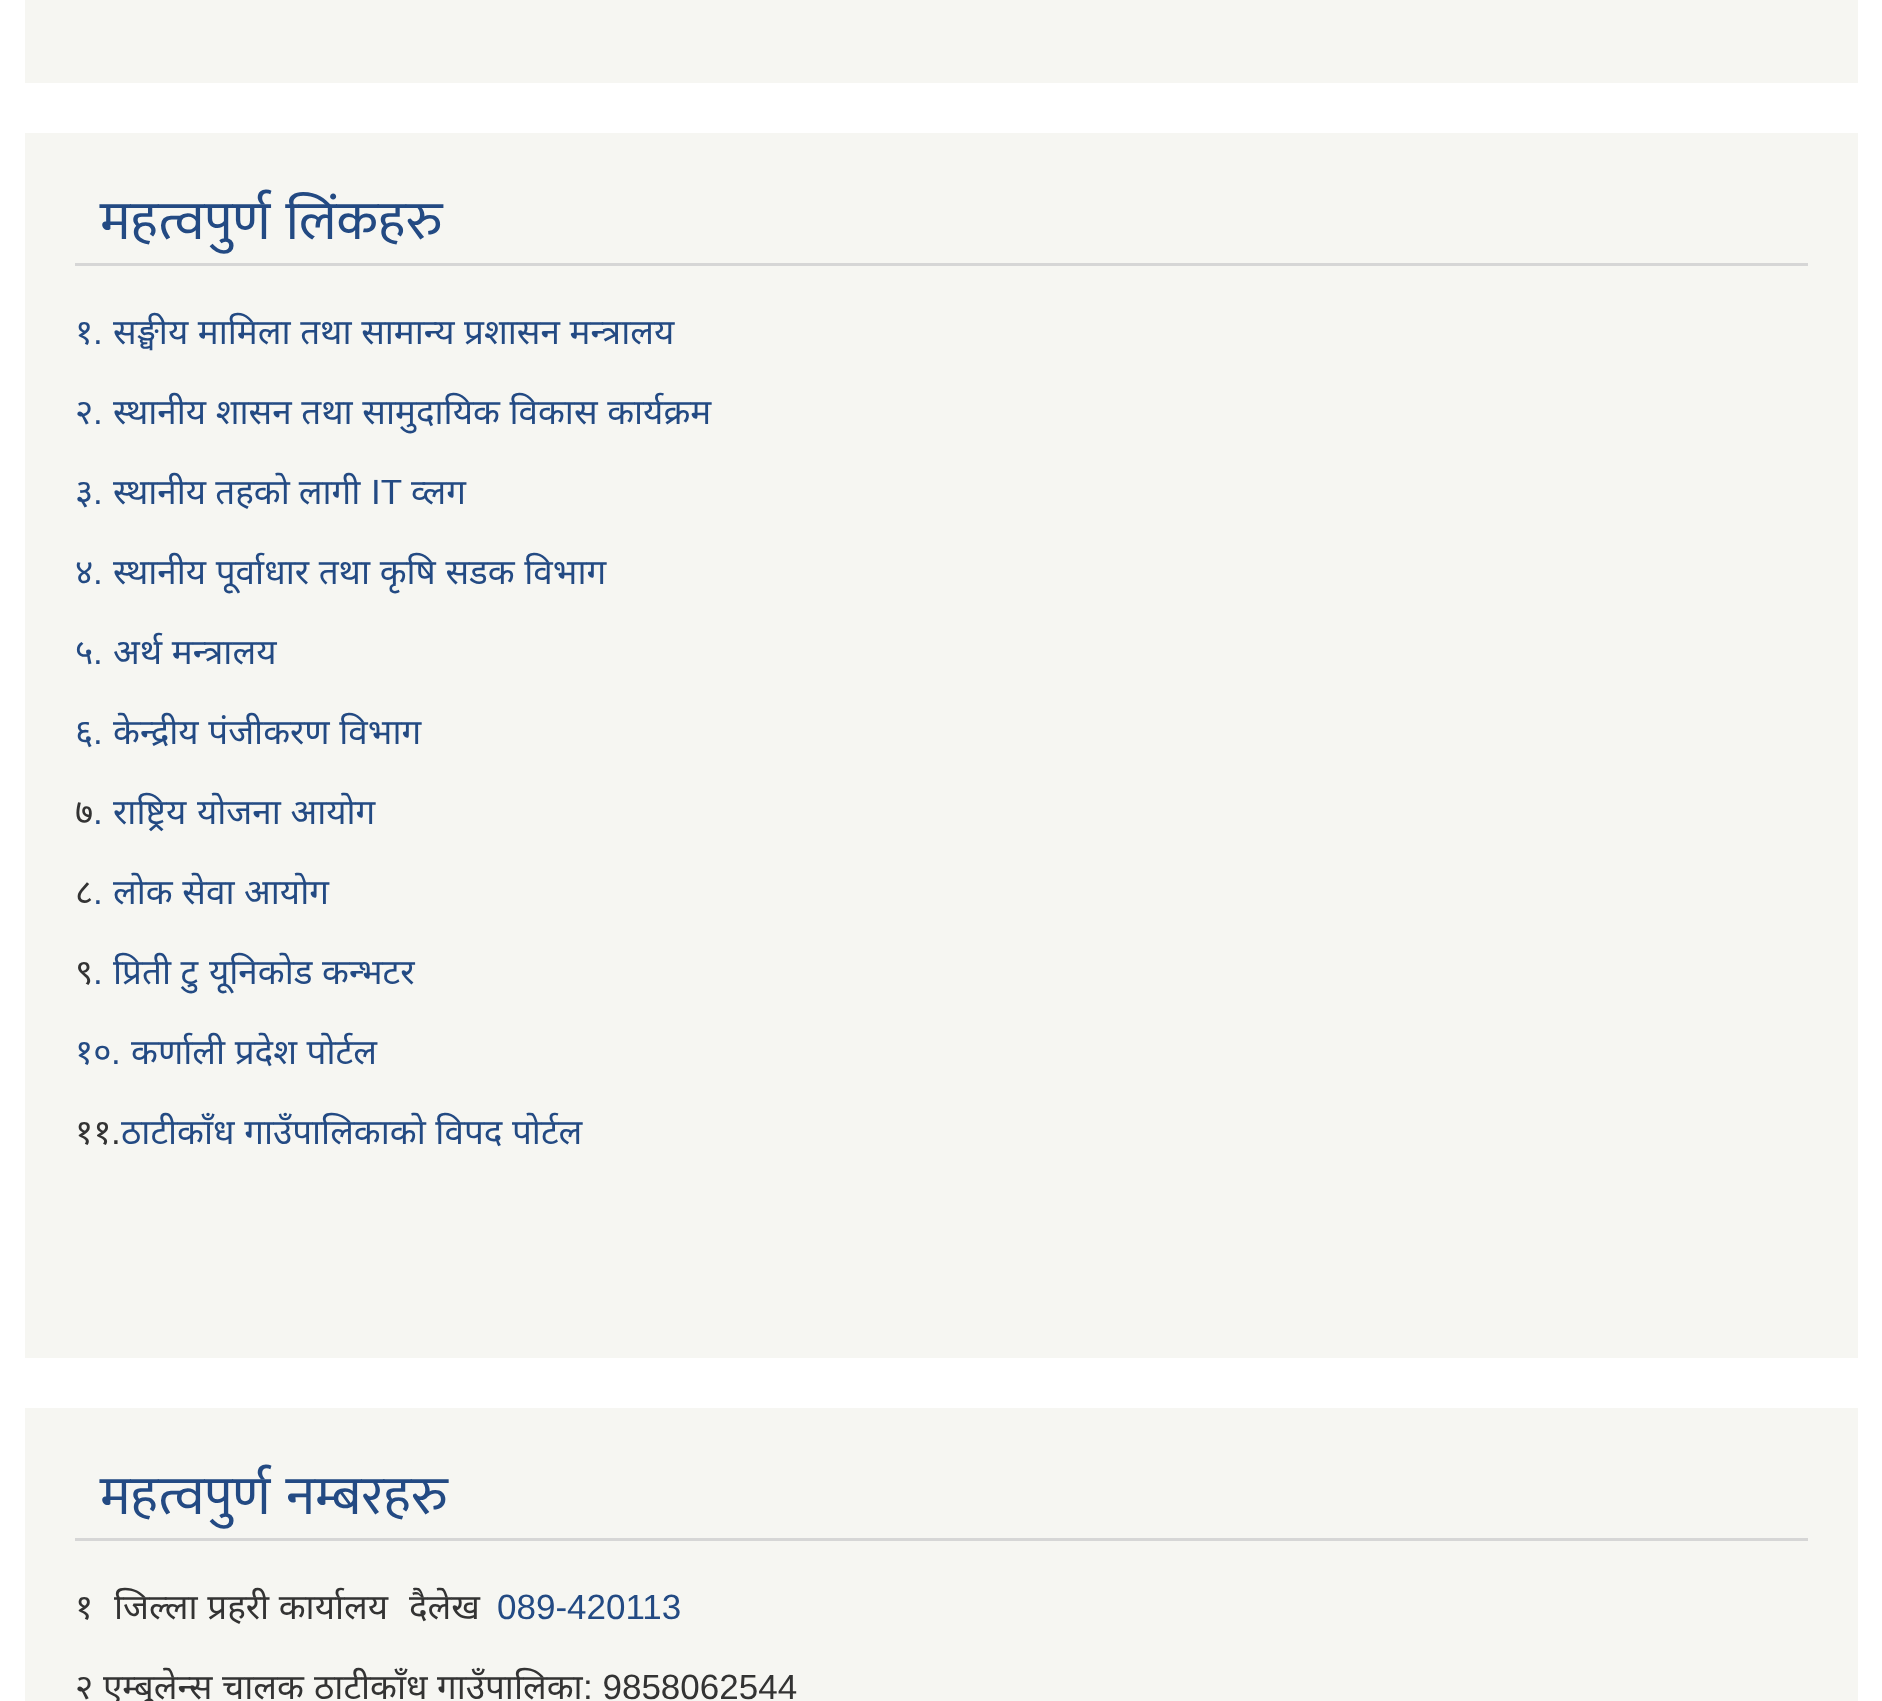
<svg xmlns="http://www.w3.org/2000/svg" xmlns:xlink="http://www.w3.org/1999/xlink" width="1882" height="1701" viewBox="0 0 1882 1701">
<style>
.cls-1{font:55px Mukta;fill:#234a83}
.cls-2{font:35px Noto Sans;fill:#234a83}
.cls-3{font:35px Liberation Sans;fill:#234a83}
.cls-4{font:35px Noto Sans;fill:#333333}
.cls-5{font:35px Liberation Sans;fill:#333333}
</style>
<rect width="100%" height="100%" fill="#ffffff"/>
<rect fill="#f6f6f2" x="25" y="0" width="1833" height="83"/>
<rect fill="#f6f6f2" x="25" y="133" width="1833" height="1225"/>
<rect fill="#d6d6d6" x="75" y="263" width="1733" height="3"/>
<rect fill="#f6f6f2" x="25" y="1408" width="1833" height="293"/>
<rect fill="#d6d6d6" x="75" y="1538" width="1733" height="3"/>
<text class="cls-1" x="100" y="239" word-spacing="3">महत्वपुर्ण लिंकहरु</text>
<text class="cls-2" x="75" y="344">१</text>
<text class="cls-3" x="93" y="344">.</text>
<text class="cls-2" x="113" y="344" word-spacing="0.5">सङ्घीय मामिला तथा सामान्य प्रशासन मन्त्रालय</text>
<text class="cls-2" x="75" y="424">२</text>
<text class="cls-3" x="93" y="424">.</text>
<text class="cls-2" x="113" y="424" word-spacing="0.5">स्थानीय शासन तथा सामुदायिक विकास कार्यक्रम</text>
<text class="cls-2" x="75" y="504">३</text>
<text class="cls-3" x="93" y="504">.</text>
<text class="cls-2" x="113" y="504">स्थानीय तहको लागी</text>
<text class="cls-3" x="371" y="504">IT</text>
<text class="cls-2" x="411" y="504">व्लग</text>
<text class="cls-2" x="75" y="584">४</text>
<text class="cls-3" x="93" y="584">.</text>
<text class="cls-2" x="113" y="584" word-spacing="0.5">स्थानीय पूर्वाधार तथा कृषि सडक विभाग</text>
<text class="cls-2" x="75" y="664">५</text>
<text class="cls-3" x="93" y="664">.</text>
<text class="cls-2" x="113" y="664" word-spacing="0.5">अर्थ मन्त्रालय</text>
<text class="cls-2" x="75" y="744">६</text>
<text class="cls-3" x="93" y="744">.</text>
<text class="cls-2" x="113" y="744" word-spacing="0.5">केन्द्रीय पंजीकरण विभाग</text>
<text class="cls-4" x="75" y="824">७</text>
<text class="cls-3" x="93" y="824">.</text>
<text class="cls-2" x="113" y="824">राष्ट्रिय</text>
<text class="cls-2" x="197" y="824" word-spacing="0.5">योजना आयोग</text>
<text class="cls-4" x="75" y="904">८</text>
<text class="cls-3" x="93" y="904">.</text>
<text class="cls-2" x="113" y="904" word-spacing="0.5">लोक सेवा आयोग</text>
<text class="cls-4" x="75" y="984">९</text>
<text class="cls-3" x="93" y="984">.</text>
<text class="cls-2" x="113" y="984" word-spacing="0.5">प्रिती टु</text>
<text class="cls-2" x="209" y="984" word-spacing="0.5">यूनिकोड कन्भटर</text>
<text class="cls-2" x="75" y="1064">१०</text>
<text class="cls-3" x="111" y="1064">.</text>
<text class="cls-2" x="131" y="1064" word-spacing="0.5">कर्णाली प्रदेश पोर्टल</text>
<text class="cls-4" x="75" y="1144">११</text>
<text class="cls-5" x="111" y="1144">.</text>
<text class="cls-2" x="121" y="1144" word-spacing="0.5">ठाटीकाँध गाउँपालिकाकाे विपद पाेर्टल</text>
<text class="cls-1" x="100" y="1514" word-spacing="3">महत्वपुर्ण नम्बरहरु</text>
<text class="cls-4" x="75" y="1619">१</text>
<text class="cls-4" x="114" y="1619" word-spacing="0.5">जिल्‍ला प्रहरी कार्यालय</text>
<text class="cls-4" x="409" y="1619">दैलेख</text>
<text class="cls-3" x="497" y="1619">089-420113</text>
<text class="cls-4" x="75" y="1699">२</text>
<text class="cls-4" x="103" y="1699">एम्बुलेन्स</text>
<text class="cls-4" x="222" y="1699">चालक</text>
<text class="cls-4" x="314" y="1699">ठाटीकाँध</text>
<text class="cls-4" x="437" y="1699">गाउँपालिका</text>
<text class="cls-5" x="583" y="1699">: 9858062544</text>
</svg>
